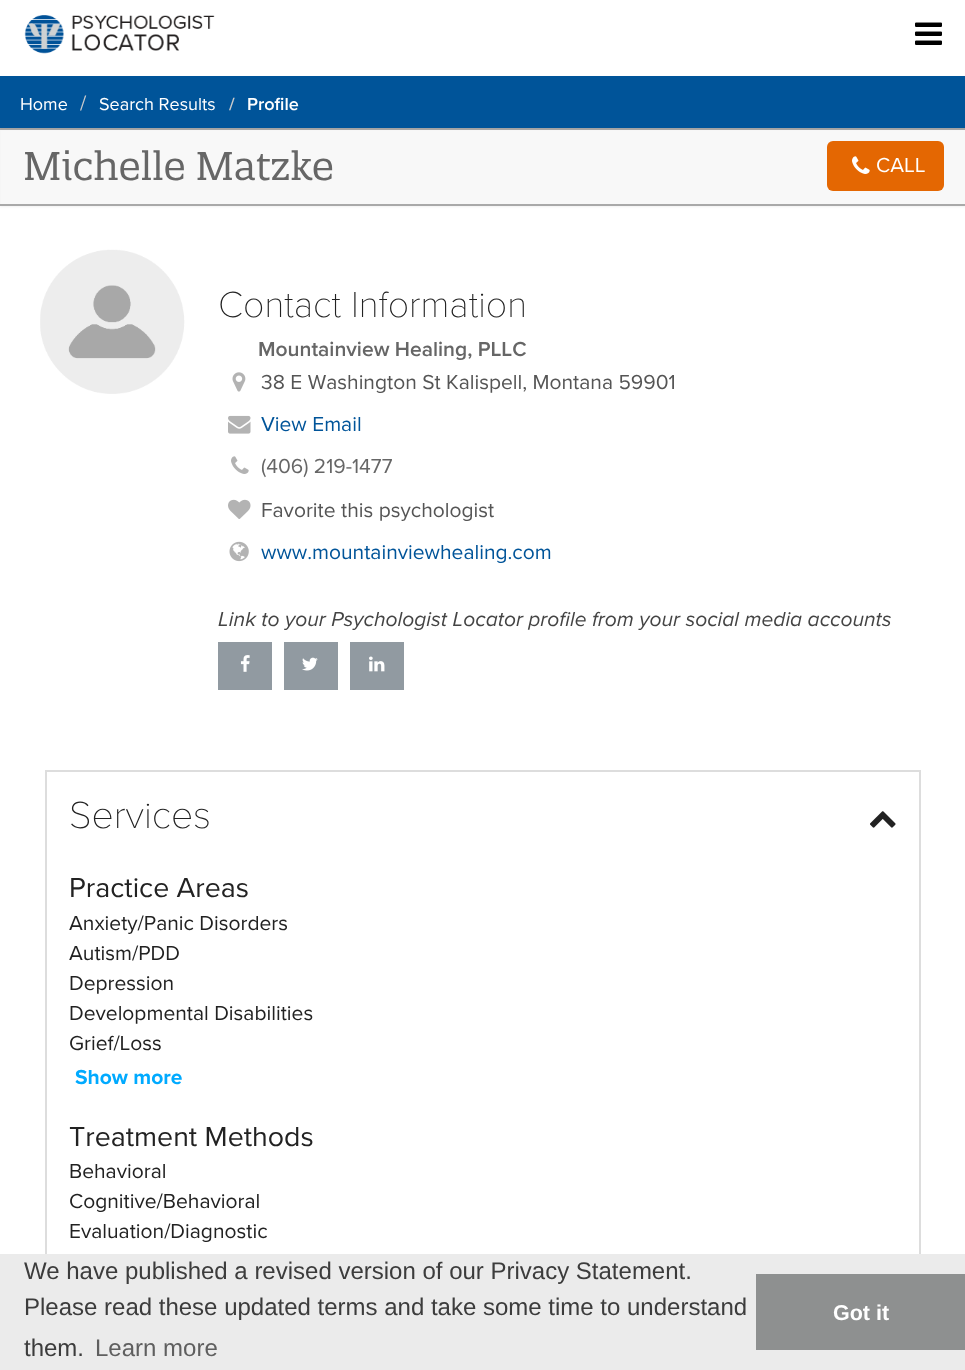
<svg xmlns="http://www.w3.org/2000/svg" xmlns:xlink="http://www.w3.org/1999/xlink" width="965" height="1370" viewBox="0 0 965 1370">
<style>
.cls-1{font:18px 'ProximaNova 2';fill:#ffffff}
.cls-2{font:21px 'ProximaNova 2';fill:#cccccc}
.cls-3{font:18px 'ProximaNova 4';fill:#cccccc}
.cls-4{font:18px 'ProximaNova 4';fill:#ffffff}
.cls-5{font:39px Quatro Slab;fill:#666666}
.cls-6{font:21px 'ProximaNova 2';fill:#ffffff}
.cls-7{font:37.5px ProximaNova;fill:#222222}
.cls-8{font:21px 'ProximaNova 4';fill:#666666}
.cls-9{font:21px 'ProximaNova 2';fill:#555555}
.cls-10{font:21px 'ProximaNova 2';fill:#005499}
.cls-11{font:21px 'ProximaNova 2';fill:#666666}
.cls-12{font:italic 21px ProximaNova;fill:#444444}
.cls-13{font:39px ProximaNova;fill:#222222}
.cls-14{font:28.5px 'ProximaNova 2';fill:#222222}
.cls-15{font:21px 'ProximaNova 2';fill:#222222}
.cls-16{font:21px 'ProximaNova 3';fill:#00aaff}
.cls-17{font:24px Liberation Sans;fill:#3c3c3c}
.cls-18{font:24px Liberation Sans;fill:#5f5f5f}
.cls-19{font:bold 21.5px Liberation Sans;fill:#ffffff}
</style>
<rect width="100%" height="100%" fill="#ffffff"/>
<image xlink:href="image0.png" x="24" y="15" width="191" height="39"/>
<image xlink:href="image1.png" x="915" y="22" width="27" height="23"/>
<rect fill="#000000" fill-opacity="0.05" filter="blur(1px)" x="0" y="129" width="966" height="78"/>
<rect fill="#f8f8f8" x="1" y="130" width="964" height="74"/>
<rect fill="#a9a9a9" x="0" y="128" width="965" height="2"/>
<rect fill="#000000" fill-opacity="0.05" filter="blur(1px)" x="0" y="77" width="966" height="52"/>
<rect fill="#005499" x="0" y="76" width="965" height="52"/>
<rect fill="#a9a9a9" x="0" y="204" width="965" height="2"/>
<rect fill="#e46702" x="827" y="141" width="117" height="50" rx="6"/>
<image xlink:href="image2.png" x="852" y="156" width="18" height="18"/>
<image xlink:href="image3.png" x="40" y="249" width="145" height="145"/>
<image xlink:href="image4.png" x="232" y="372" width="14" height="20"/>
<image xlink:href="image5.png" x="228" y="415" width="23" height="19"/>
<image xlink:href="image6.png" x="231" y="456" width="18" height="18"/>
<image xlink:href="image7.png" x="228" y="499" width="23" height="20"/>
<image xlink:href="image8.png" x="229" y="541" width="20" height="21"/>
<rect fill="#919aa1" x="218" y="642" width="54" height="48"/>
<image xlink:href="image9.png" x="240" y="655" width="10" height="17"/>
<rect fill="#919aa1" x="284" y="642" width="54" height="48"/>
<image xlink:href="image10.png" x="302" y="657" width="16" height="14"/>
<rect fill="#919aa1" x="350" y="642" width="54" height="48"/>
<image xlink:href="image11.png" x="369" y="656" width="16" height="16"/>
<rect fill="none" stroke="#dddddd" stroke-width="2" x="46" y="771" width="874" height="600"/>
<image xlink:href="image12.png" x="870" y="811" width="26" height="17"/>
<rect fill="#ebebeb" x="0" y="1254" width="965" height="116"/>
<rect fill="#8e9090" x="756" y="1274" width="209" height="76"/>
<text class="cls-1" x="20" y="110">Home</text>
<text class="cls-2" x="80" y="110">/</text>
<text class="cls-1" x="99" y="110">Search Results</text>
<text class="cls-3" x="229" y="110">/</text>
<text class="cls-4" x="247" y="110">Profile</text>
<text class="cls-5" x="23" y="180">Michelle Matzke</text>
<text class="cls-6" x="876" y="172">CALL</text>
<text class="cls-7" x="218" y="317">Contact Information</text>
<text class="cls-8" x="258" y="356">Mountainview Healing, PLLC</text>
<text class="cls-9" x="261" y="389">38 E Washington St Kalispell, Montana 59901</text>
<text class="cls-10" x="261" y="431">View Email</text>
<text class="cls-11" x="261" y="473">(406) 219-1477</text>
<text class="cls-9" x="261" y="517">Favorite this psychologist</text>
<text class="cls-10" x="261" y="559">www.mountainviewhealing.com</text>
<text class="cls-12" x="218" y="626">Link to your Psychologist Locator profile from your social media accounts</text>
<text class="cls-13" x="69" y="828">Services</text>
<text class="cls-14" x="69" y="897">Practice Areas</text>
<text class="cls-15"><tspan x="69" y="930">Anxiety/Panic Disorders</tspan><tspan x="69" y="960">Autism/PDD</tspan><tspan x="69" y="990">Depression</tspan><tspan x="69" y="1020">Developmental Disabilities</tspan><tspan x="69" y="1050">Grief/Loss</tspan></text>
<text class="cls-16" x="75" y="1084">Show more</text>
<text class="cls-14" x="69" y="1146">Treatment Methods</text>
<text class="cls-15"><tspan x="69" y="1178">Behavioral</tspan><tspan x="69" y="1208">Cognitive/Behavioral</tspan><tspan x="69" y="1238">Evaluation/Diagnostic</tspan></text>
<text class="cls-17"><tspan x="24" y="1279">We have published a revised version of our Privacy Statement.</tspan><tspan x="24" y="1315">Please read these updated terms and take some time to understand</tspan><tspan x="24" y="1356">them.</tspan></text>
<text class="cls-18" x="95" y="1356">Learn more</text>
<text class="cls-19" x="833" y="1320">Got it</text>
</svg>
